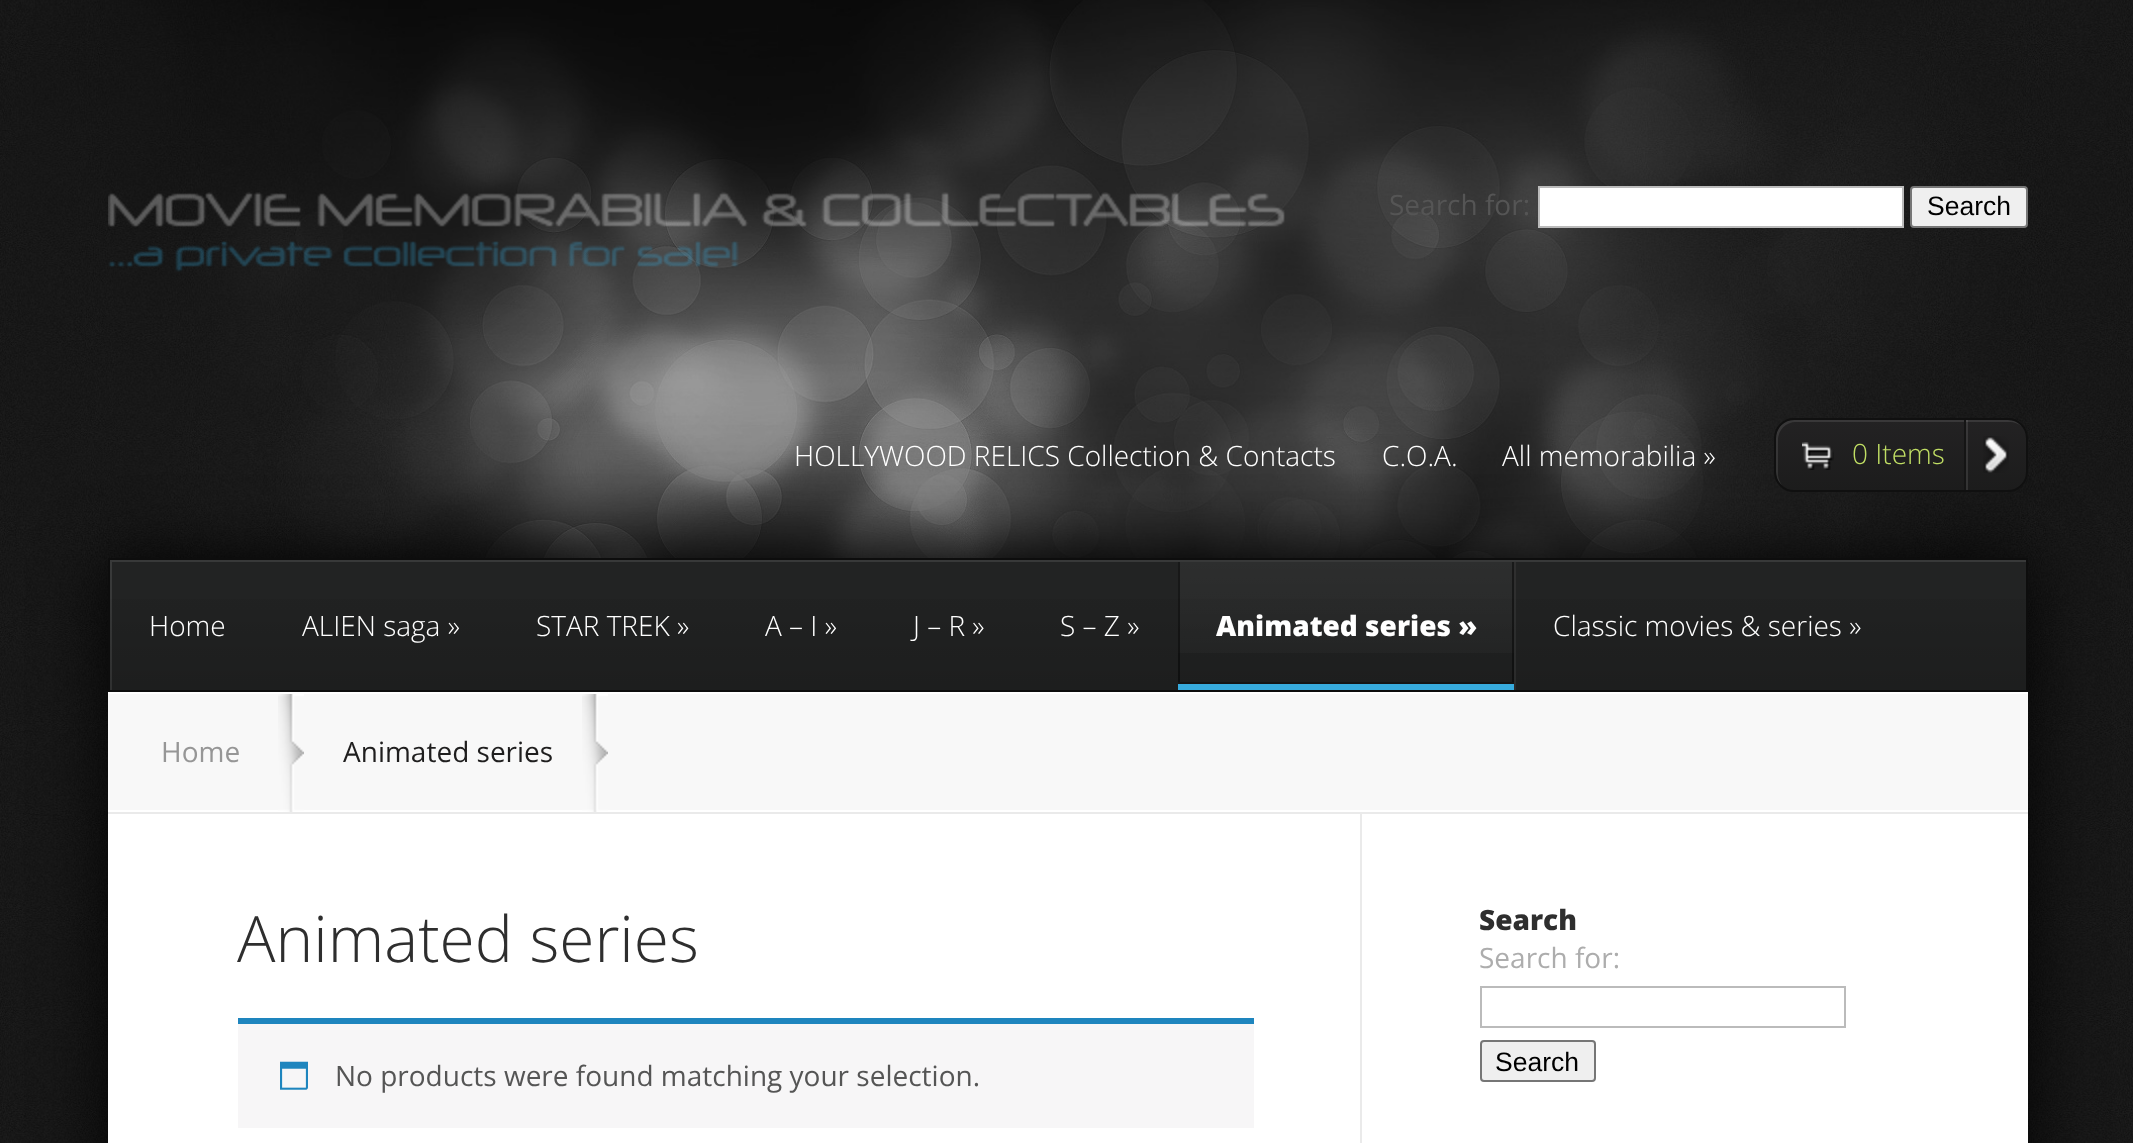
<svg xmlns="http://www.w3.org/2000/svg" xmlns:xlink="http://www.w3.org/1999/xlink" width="2133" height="1143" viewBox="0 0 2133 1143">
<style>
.cls-1{font:28px Open Sans;fill:#555555}
.cls-2{font:26.5px Liberation Sans;fill:#000000}
.cls-3{font:300 28px Open Sans;fill:#ffffff}
.cls-4{font:300 28px Open Sans;fill:#c0de64}
.cls-5{font:800 28px Open Sans;fill:#ffffff}
.cls-6{font:28px Open Sans;fill:#969696}
.cls-7{font:28px Open Sans;fill:#1f1e1e}
.cls-8{font:300 64px Open Sans;fill:#2e2e2e}
.cls-9{font:800 28px Open Sans;fill:#2e2e2e}
.cls-10{font:28px Open Sans;fill:#adadad}
</style>
<defs>
<clipPath id="clip1"><rect x="1774" y="418" width="254" height="74" rx="20"/></clipPath>
<linearGradient id="g1" gradientUnits="userSpaceOnUse" x1="1901" y1="420" x2="1901" y2="490"><stop offset="0" stop-color="#232223"/><stop offset="1" stop-color="#1c1c1c"/></linearGradient>
<clipPath id="clip2"><rect x="110" y="560" width="1916" height="130"/></clipPath>
<linearGradient id="g2" gradientUnits="userSpaceOnUse" x1="1068" y1="560" x2="1068" y2="690"><stop offset="0" stop-color="#000000" stop-opacity="0"/><stop offset="1" stop-color="#000000" stop-opacity="0.15"/></linearGradient>
<linearGradient id="g3" gradientUnits="userSpaceOnUse" x1="1346" y1="562" x2="1346" y2="690"><stop offset="0" stop-color="#ffffff" stop-opacity="0.05"/><stop offset="1" stop-color="#ffffff" stop-opacity="0.01"/></linearGradient>
</defs>
<rect width="100%" height="100%" fill="#ffffff"/>
<image xlink:href="image0.png" x="0" y="0" width="2133" height="1143"/>
<image xlink:href="image1.png" x="108" y="192" width="1177" height="80"/>
<rect fill="#ffffff" stroke="#bbbbbb" stroke-width="2" x="1539" y="187" width="364" height="40"/>
<rect fill="#efefef" stroke="#767676" stroke-width="2" x="1911" y="187" width="116" height="40" rx="3"/>
<rect fill="#000000" fill-opacity="0.9" filter="blur(35px)" x="108" y="558" width="1920" height="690"/>
<g clip-path="url(#clip1)">
<rect fill="url(#g1)" x="1774" y="420" width="254" height="70"/>
</g>
<path fill="#ffffff" fill-opacity="0.1" d="M1796 422H2010C2014 422 2018 424 2022 426C2018 422 2013 420 2008 420H1794C1784 420 1776 428 1776 438V472C1776 477 1778 482 1782 486C1780 482 1778 478 1778 474V440C1778 430 1786 422 1796 422Z"/>
<rect fill="none" stroke="#101010" stroke-width="2" x="1775" y="419" width="252" height="72" rx="19"/>
<image xlink:href="image2.png" x="1802" y="442" width="32" height="28"/>
<image xlink:href="image3.png" x="1983" y="436" width="26" height="37"/>
<rect fill="#ffffff" fill-opacity="0.1" x="1966" y="420" width="2" height="70"/>
<rect fill="#151515" x="1964" y="420" width="2" height="70"/>
<rect fill="#ffffff" x="108" y="814" width="1920" height="329"/>
<rect fill="#222323" x="112" y="562" width="1914" height="128"/>
<g clip-path="url(#clip2)">
<path fill="#383939" fill-rule="evenodd" d="M-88 362H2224V888H-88ZM112 562H2028V692H112Z"/>
</g>
<rect fill="none" stroke="#0d0d0d" stroke-width="2" x="109" y="559" width="1918" height="132"/>
<rect fill="url(#g2)" x="110" y="599" width="1916" height="91"/>
<rect fill="#ffffff" fill-opacity="0.06" x="1514" y="562" width="2" height="128"/>
<rect fill="url(#g3)" x="1178" y="562" width="336" height="91"/>
<rect fill="#000000" fill-opacity="0.45" x="1178" y="562" width="2" height="128"/>
<rect fill="#000000" fill-opacity="0.45" x="1512" y="562" width="2" height="128"/>
<rect fill="#37abdd" x="1178" y="684" width="336" height="6"/>
<rect fill="#151515" x="1178" y="682" width="336" height="2"/>
<rect fill="#f8f8f8" x="108" y="694" width="1920" height="116"/>
<rect fill="#ffffff" x="108" y="692" width="1920" height="2"/>
<rect fill="#ffffff" x="108" y="810" width="1920" height="2"/>
<rect fill="#eaeaea" x="108" y="812" width="1920" height="2"/>
<image xlink:href="image4.png" x="278" y="694" width="26" height="118"/>
<image xlink:href="image4.png" x="582" y="694" width="26" height="118"/>
<rect fill="#f7f6f7" x="238" y="1024" width="1016" height="104"/>
<rect fill="#1e85be" x="238" y="1018" width="1016" height="6"/>
<image xlink:href="image5.png" x="280" y="1061" width="28" height="29"/>
<rect fill="#eaeaea" x="1360" y="814" width="2" height="329"/>
<rect fill="none" stroke="#bbbbbb" stroke-width="2" x="1481" y="987" width="364" height="40"/>
<rect fill="#efefef" stroke="#767676" stroke-width="2" x="1481" y="1041" width="114" height="40" rx="3"/>
<text class="cls-1" x="1389" y="215">Search for:</text>
<text class="cls-2" x="1927" y="215">Search</text>
<text class="cls-3" x="794" y="466">HOLLYWOOD RELICS Collection &amp; Contacts</text>
<text class="cls-3" x="1382" y="466">C.O.A.</text>
<text class="cls-3" x="1502" y="466">All memorabilia »</text>
<text class="cls-4" x="1852" y="464">0 Items</text>
<text class="cls-3" x="149" y="636">Home</text>
<text class="cls-3" x="302" y="636">ALIEN saga »</text>
<text class="cls-3" x="536" y="636">STAR TREK »</text>
<text class="cls-3" x="765" y="636">A – I »</text>
<text class="cls-3" x="913" y="636">J – R »</text>
<text class="cls-3" x="1060" y="636">S – Z »</text>
<text class="cls-5" x="1216" y="636">Animated series »</text>
<text class="cls-3" x="1553" y="636">Classic movies &amp; series »</text>
<text class="cls-6" x="161" y="762">Home</text>
<text class="cls-7" x="343" y="762">Animated series</text>
<text class="cls-8" x="237" y="962">Animated series</text>
<text class="cls-1" x="335" y="1086">No products were found matching your selection.</text>
<text class="cls-9" x="1479" y="930">Search</text>
<text class="cls-10" x="1479" y="968">Search for:</text>
<text class="cls-2" x="1495" y="1071">Search</text>
</svg>
